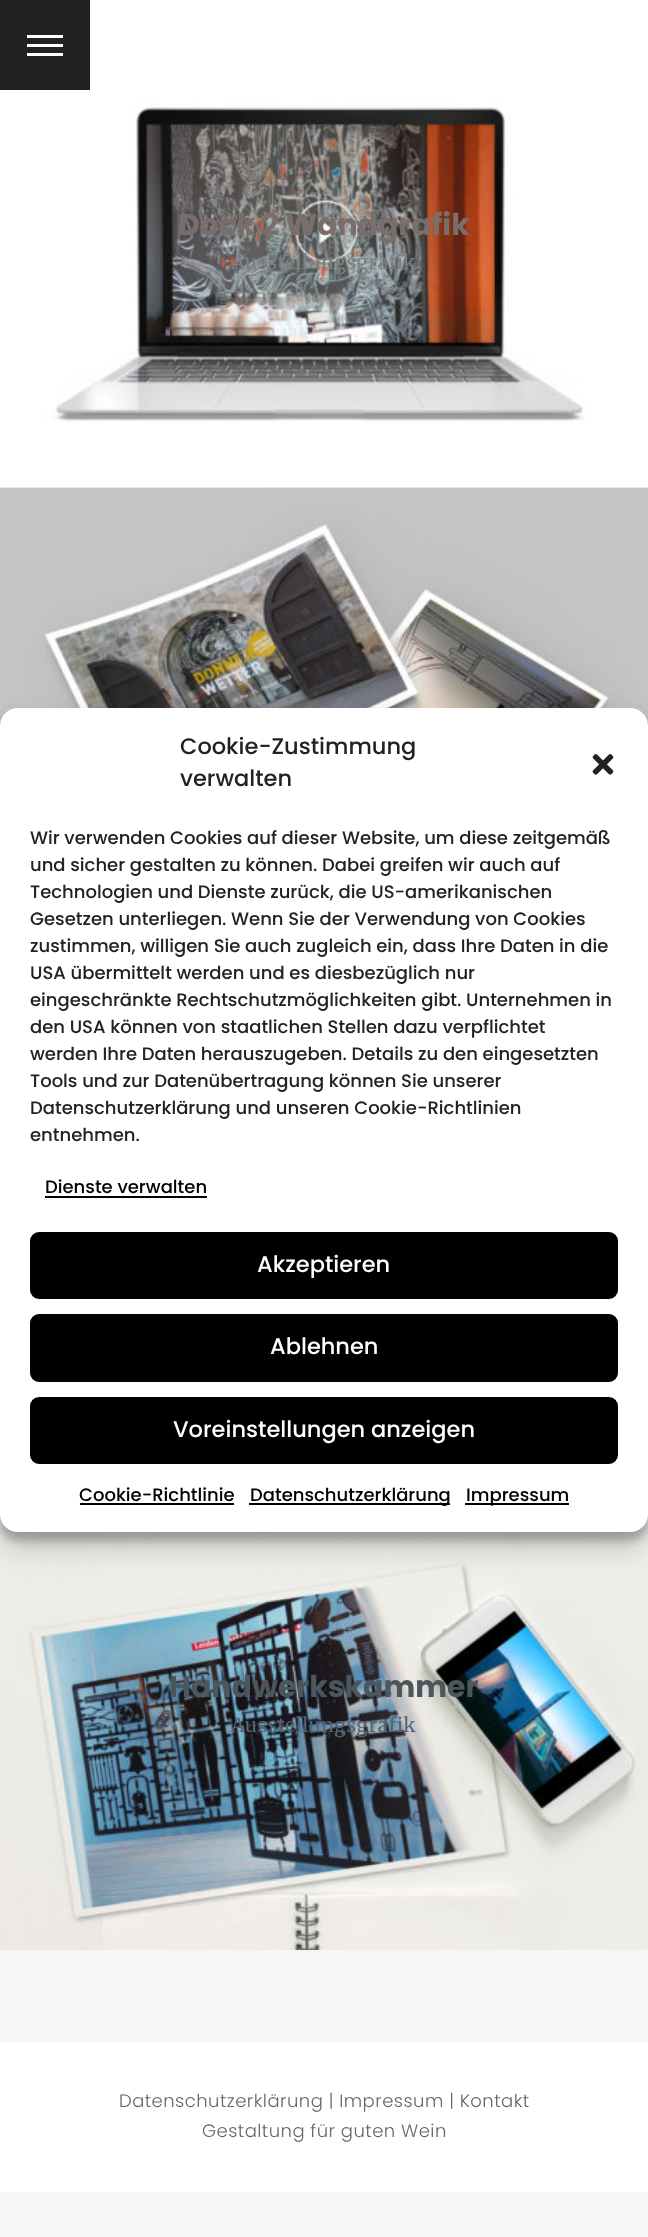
<svg xmlns="http://www.w3.org/2000/svg" xmlns:xlink="http://www.w3.org/1999/xlink" width="648" height="2237" viewBox="0 0 648 2237">
<style>
.cls-1{font:bold 30px Poppins;fill:#7b6e6a}
.cls-2{font:19.5px Merriweather;letter-spacing:0.45px;fill:#7d8082}
.cls-3{font:bold 30px Poppins;fill:#4c565d}
.cls-4{font:19.5px Merriweather;letter-spacing:0.45px;fill:#566572}
.cls-5{font:300 18px Poppins;letter-spacing:0.45px;fill:#666666}
.cls-6{font:500 22.5px Poppins;fill:#222222}
.cls-7{font:500 18px Poppins;fill:#222222}
.cls-8{font:500 18px Poppins;fill:#000000}
.cls-9{font:500 22.5px Poppins;fill:#ffffff}
</style>
<rect width="100%" height="100%" fill="#f6f6f6"/>
<image xlink:href="image0.png" x="0" y="0" width="648" height="487"/>
<rect fill="#222222" x="0" y="0" width="90" height="90"/>
<rect fill="#ffffff" x="27" y="35" width="36" height="3"/>
<rect fill="#ffffff" x="27" y="44" width="36" height="3"/>
<rect fill="#ffffff" x="27" y="53" width="36" height="3"/>
<image xlink:href="image1.png" x="0" y="487" width="648" height="239"/>
<image xlink:href="image2.png" x="0" y="1514" width="648" height="436"/>
<rect fill="#ffffff" x="0" y="2042" width="648" height="150"/>
<rect fill="#000000" fill-opacity="0.23" filter="blur(4.5px)" x="0" y="717" width="648" height="824" rx="18"/>
<rect fill="#000000" fill-opacity="0.19" filter="blur(15px)" x="0" y="723" width="648" height="824" rx="18"/>
<rect fill="#ffffff" x="0" y="708" width="648" height="824" rx="18"/>
<image xlink:href="image3.png" x="592" y="754" width="22" height="21"/>
<rect fill="#000000" x="45" y="1196" width="162" height="2"/>
<rect fill="#000000" stroke="#000000" stroke-width="2" x="31" y="1233" width="586" height="65" rx="8"/>
<rect fill="#000000" stroke="#000000" stroke-width="2" x="31" y="1315" width="586" height="66" rx="8"/>
<rect fill="#000000" stroke="#000000" stroke-width="2" x="31" y="1398" width="586" height="65" rx="8"/>
<rect fill="#000000" x="80" y="1503" width="154" height="2"/>
<rect fill="#000000" x="249" y="1503" width="201" height="2"/>
<rect fill="#000000" x="465" y="1503" width="104" height="2"/>
<text class="cls-1" x="178" y="235">Dock 2 Wandgrafik</text>
<text class="cls-2" x="231" y="269">Ausstellungsgrafik</text>
<text class="cls-3" x="169" y="1697">Handwerkskammer</text>
<text class="cls-4" x="231" y="1732">Ausstellungsgrafik</text>
<text class="cls-5" x="119" y="2107">Datenschutzerklärung | Impressum | Kontakt</text>
<text class="cls-5" x="202" y="2137">Gestaltung für guten Wein</text>
<text class="cls-6"><tspan x="180" y="754">Cookie-Zustimmung</tspan><tspan x="180" y="786">verwalten</tspan></text>
<text class="cls-7"><tspan x="30" y="844">Wir verwenden Cookies auf dieser Website, um diese zeitgemäß</tspan><tspan x="30" y="871">und sicher gestalten zu können. Dabei greifen wir auch auf</tspan><tspan x="30" y="898">Technologien und Dienste zurück, die US-amerikanischen</tspan><tspan x="30" y="925">Gesetzen unterliegen. Wenn Sie der Verwendung von Cookies</tspan><tspan x="30" y="952">zustimmen, willigen Sie auch zugleich ein, dass Ihre Daten in die</tspan><tspan x="30" y="979">USA übermittelt werden und es diesbezüglich nur</tspan><tspan x="30" y="1006">eingeschränkte Rechtschutzmöglichkeiten gibt. Unternehmen in</tspan><tspan x="30" y="1033">den USA können von staatlichen Stellen dazu verpflichtet</tspan><tspan x="30" y="1060">werden Ihre Daten herauszugeben. Details zu den eingesetzten</tspan><tspan x="30" y="1087">Tools und zur Datenübertragung können Sie unserer</tspan><tspan x="30" y="1114">Datenschutzerklärung und unseren Cookie-Richtlinien</tspan><tspan x="30" y="1141">entnehmen.</tspan></text>
<text class="cls-8" x="45" y="1193">Dienste verwalten</text>
<text class="cls-9" x="257" y="1272">Akzeptieren</text>
<text class="cls-9" x="270" y="1354">Ablehnen</text>
<text class="cls-9" x="173" y="1437">Voreinstellungen anzeigen</text>
<text class="cls-8" x="79" y="1501">Cookie-Richtlinie</text>
<text class="cls-8" x="250" y="1501">Datenschutzerklärung</text>
<text class="cls-8" x="466" y="1501">Impressum</text>
</svg>
